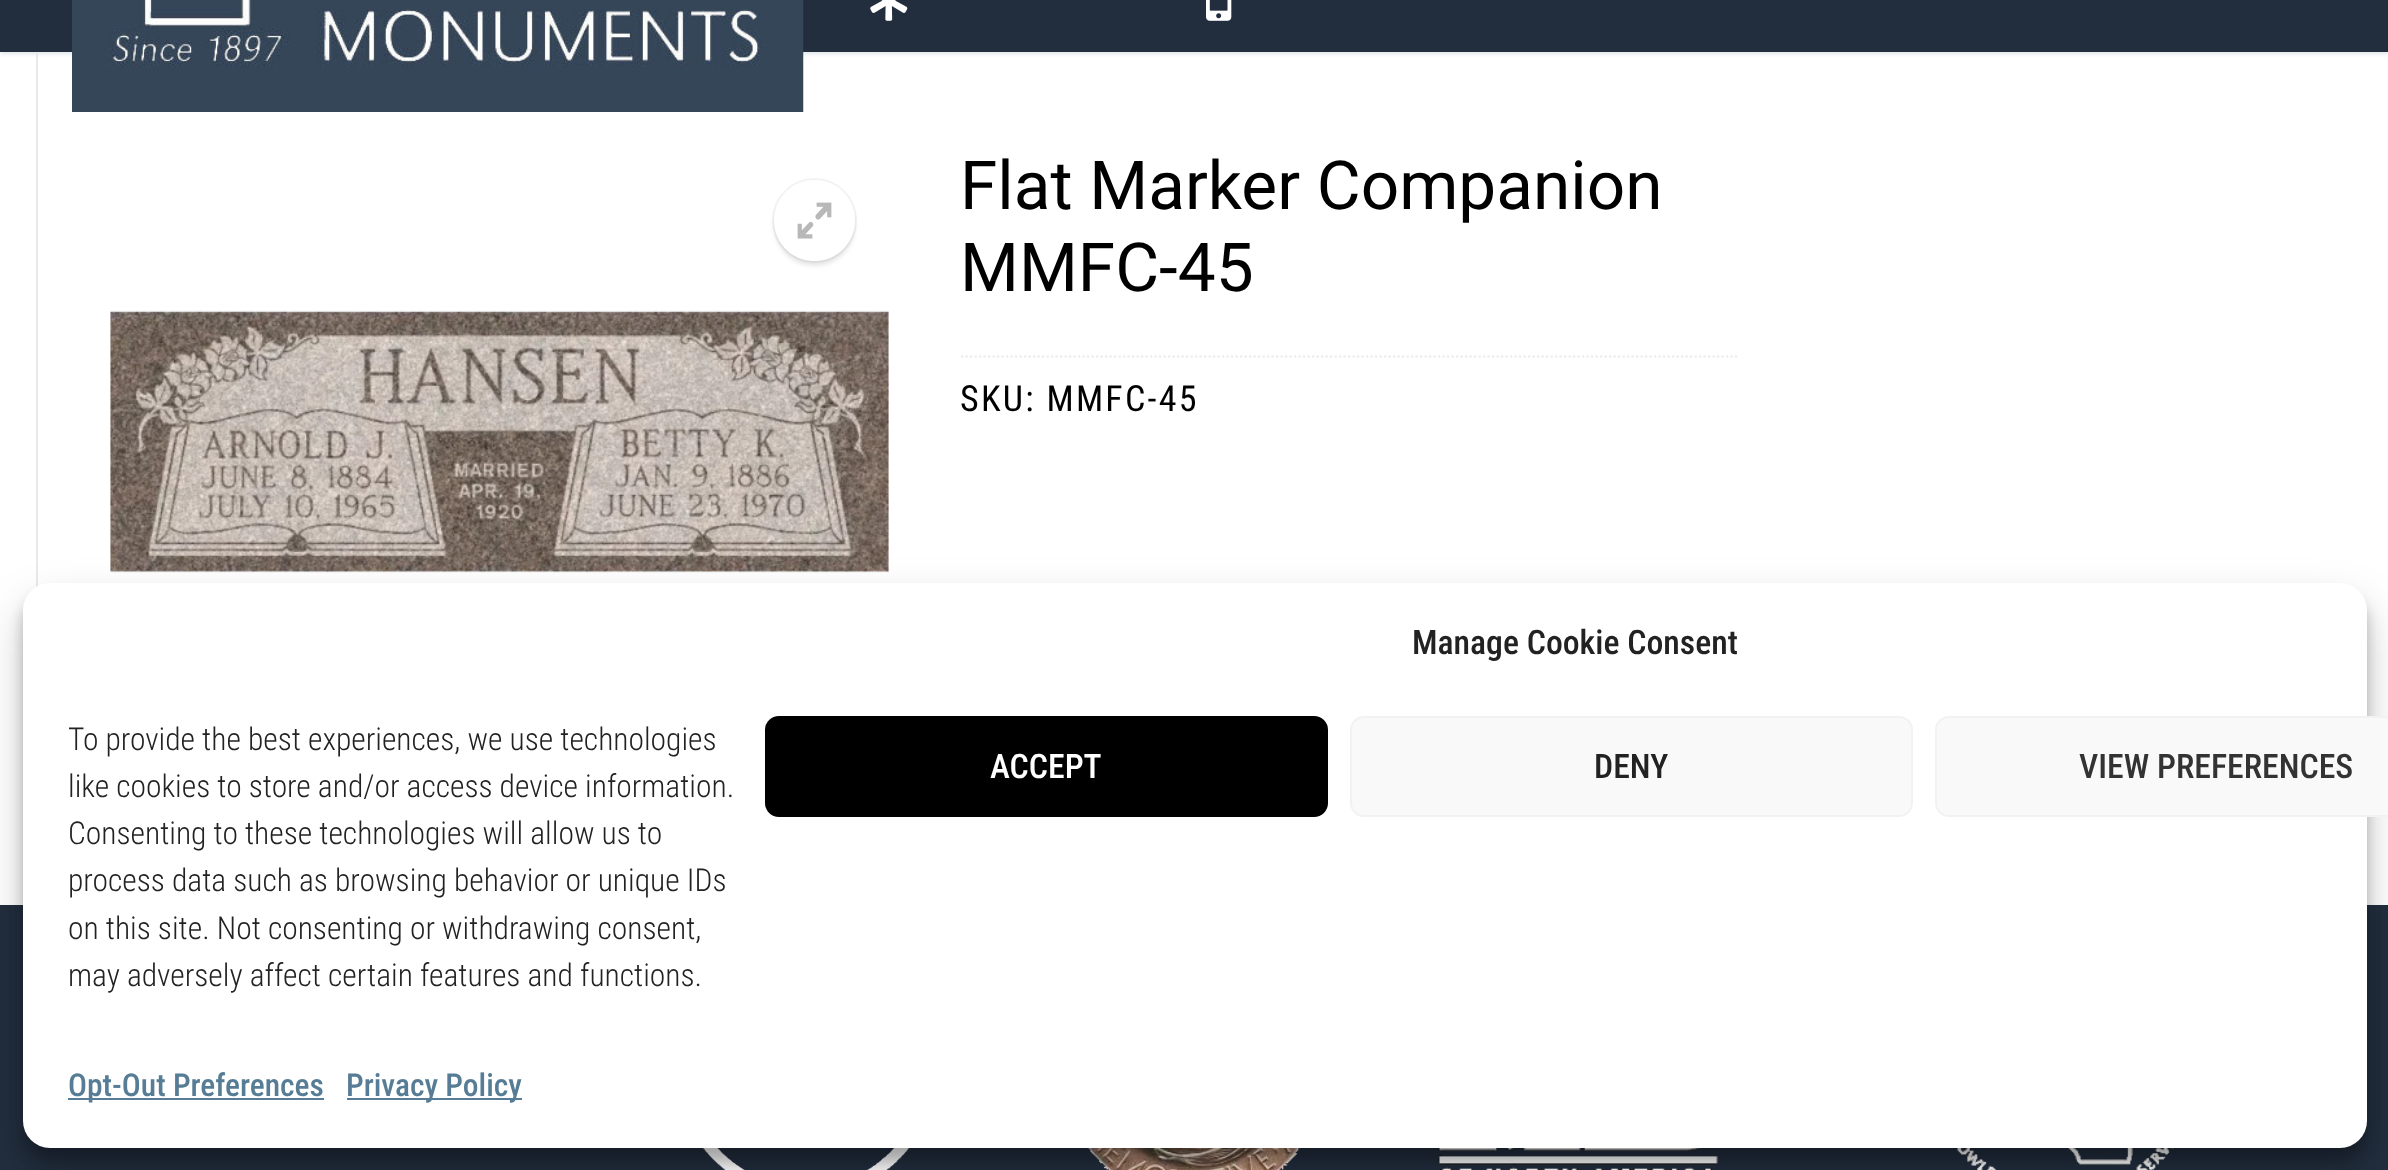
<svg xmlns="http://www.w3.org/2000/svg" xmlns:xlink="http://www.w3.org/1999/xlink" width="2388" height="1170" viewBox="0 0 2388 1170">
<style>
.cls-1{font:67.5px Roboto;fill:#000000}
.cls-2{font:36px Roboto Condensed;letter-spacing:2.25px;fill:#000000}
.cls-3{font:500 33.75px Roboto Condensed;fill:#222222}
.cls-4{font:300 31.5px Roboto Condensed;fill:#222222}
.cls-5{font:500 33.75px Roboto Condensed;fill:#ffffff}
.cls-6{font:500 33.75px Roboto Condensed;fill:#333333}
.cls-7{font:500 31.5px Roboto Condensed;fill:#577d96}
</style>
<defs>
<clipPath id="clip1"><path d="M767 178H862V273H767ZM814.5 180C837 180 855 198 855 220.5C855 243 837 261 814.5 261C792 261 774 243 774 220.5C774 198 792 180 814.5 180Z" clip-rule="evenodd"/></clipPath>
</defs>
<rect width="100%" height="100%" fill="#ffffff"/>
<rect fill="#e9e9ee" x="36" y="52" width="2" height="535"/>
<rect fill="#e1e5ea" filter="blur(2px)" x="0" y="-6" width="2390" height="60"/>
<rect fill="#222e3e" x="0" y="0" width="2388" height="52"/>
<image xlink:href="image0.png" x="72" y="0" width="732" height="112"/>
<image xlink:href="image1.png" x="870" y="0" width="38" height="21"/>
<image xlink:href="image2.png" x="1206" y="0" width="26" height="21"/>
<circle fill="none" stroke="#f3f3f3" stroke-width="2" cx="814.5" cy="220.5" r="41.5"/>
<g clip-path="url(#clip1)">
<rect fill="#666666" fill-opacity="0.16" filter="blur(2px)" x="774" y="185" width="81" height="81" rx="40.5"/>
</g>
<circle fill="#ffffff" fill-opacity="0.5" cx="814.5" cy="220.5" r="40.5"/>
<image xlink:href="image3.png" x="797" y="202" width="35" height="37"/>
<image xlink:href="image4.png" x="110" y="310" width="779" height="263"/>
<path fill="none" stroke="#e9e9ee" stroke-width="2.2" stroke-dasharray="2.25 2.25" d="M961 356.5H1739"/>
<rect fill="#222e3e" x="0" y="905" width="2388" height="265"/>
<image xlink:href="image5.png" x="702" y="1148" width="208" height="22"/>
<image xlink:href="image6.png" x="1087" y="1148" width="213" height="22"/>
<image xlink:href="image7.png" x="1438" y="1148" width="280" height="22"/>
<image xlink:href="image8.png" x="1957" y="1148" width="217" height="22"/>
<rect fill="#000000" fill-opacity="0.23" filter="blur(7px)" x="23" y="596" width="2344" height="565" rx="27"/>
<rect fill="#000000" fill-opacity="0.19" filter="blur(22.5px)" x="23" y="605" width="2344" height="565" rx="27"/>
<rect fill="#ffffff" x="23" y="583" width="2344" height="565" rx="27"/>
<rect fill="#000000" stroke="#000000" stroke-width="2" x="766" y="717" width="561" height="99" rx="13"/>
<rect fill="#f9f9f9" stroke="#f2f2f2" stroke-width="2" x="1351" y="717" width="561" height="99" rx="13"/>
<rect fill="#f9f9f9" stroke="#f2f2f2" stroke-width="2" x="1936" y="717" width="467" height="99" rx="13"/>
<rect fill="#577d96" x="68" y="1098" width="256" height="2"/>
<rect fill="#577d96" x="347" y="1098" width="175" height="2"/>
<text class="cls-1"><tspan x="960" y="209">Flat Marker Companion</tspan><tspan x="960" y="291">MMFC-45</tspan></text>
<text class="cls-2" x="960" y="411">SKU: MMFC-45</text>
<text class="cls-3" x="1412" y="654">Manage Cookie Consent</text>
<text class="cls-4"><tspan x="68" y="750">To provide the best experiences, we use technologies</tspan><tspan x="68" y="797">like cookies to store and/or access device information.</tspan><tspan x="68" y="844">Consenting to these technologies will allow us to</tspan><tspan x="68" y="891">process data such as browsing behavior or unique IDs</tspan><tspan x="68" y="939">on this site. Not consenting or withdrawing consent,</tspan><tspan x="68" y="986">may adversely affect certain features and functions.</tspan></text>
<text class="cls-5" x="990" y="778">ACCEPT</text>
<text class="cls-3" x="1594" y="778">DENY</text>
<text class="cls-6" x="2079" y="778">VIEW PREFERENCES</text>
<text class="cls-7" x="68" y="1096">Opt-Out Preferences</text>
<text class="cls-7" x="346" y="1096">Privacy Policy</text>
</svg>
